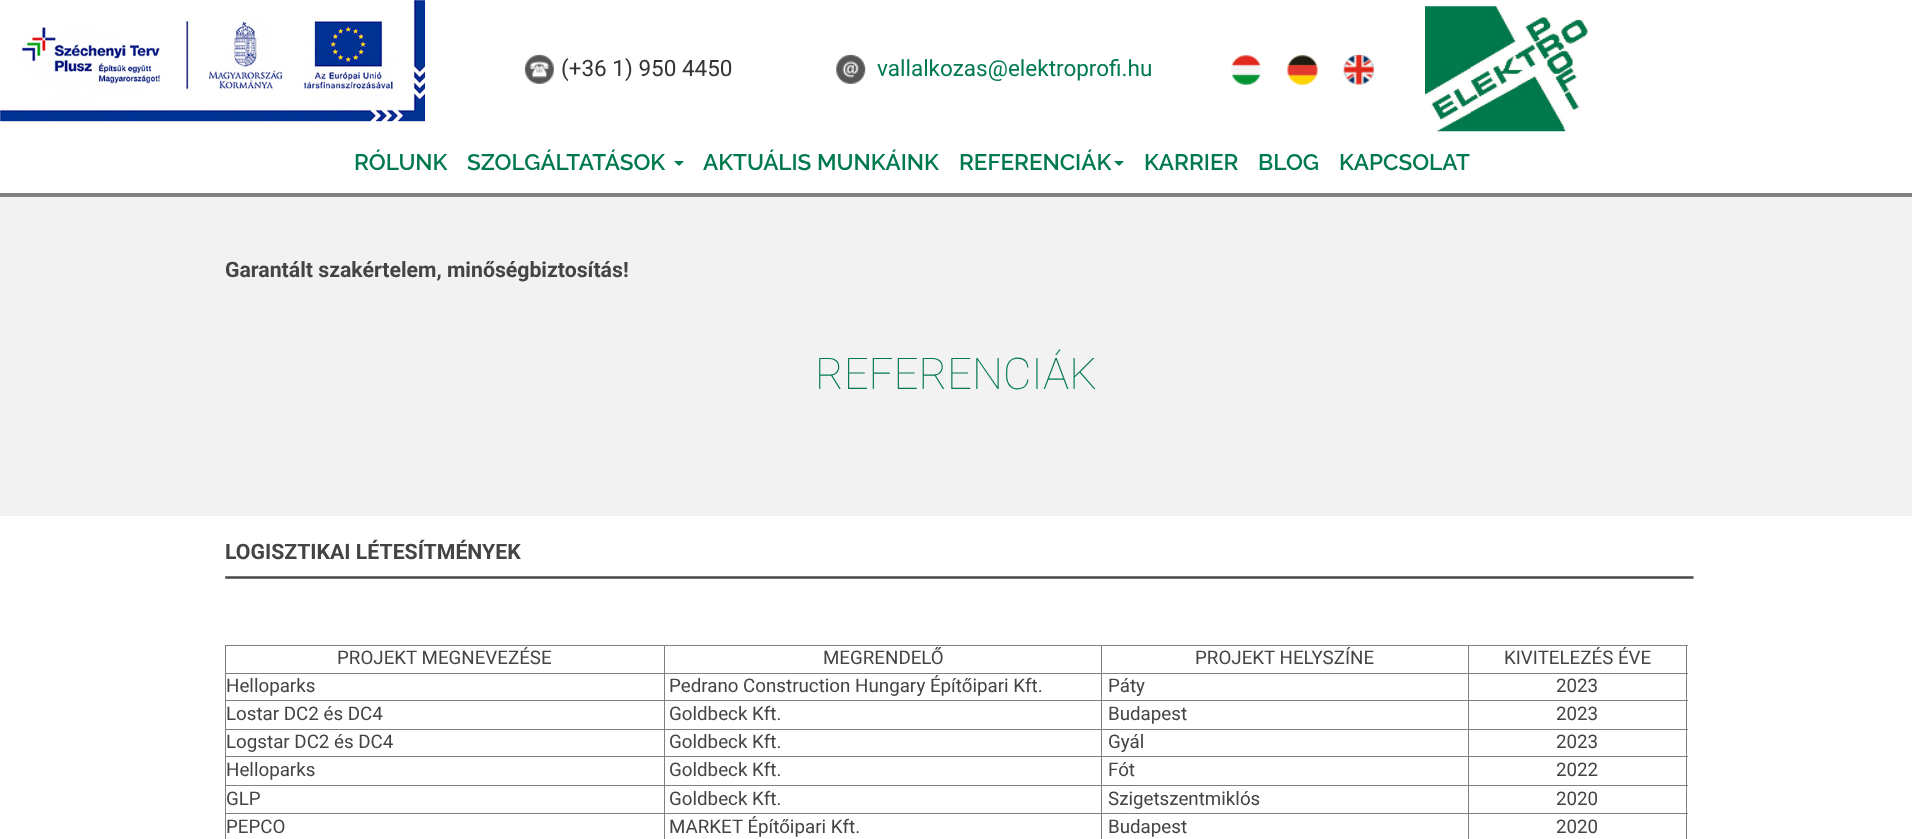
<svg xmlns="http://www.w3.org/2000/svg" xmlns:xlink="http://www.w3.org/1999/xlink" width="1912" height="839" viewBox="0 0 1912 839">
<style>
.cls-1{font:22.5px Roboto;fill:#333333}
.cls-2{font:22.5px Roboto;fill:#00794d}
.cls-3{font:600 22.5px Raleway;fill:#00794d}
.cls-4{font:bold 21.25px Roboto;fill:#444444}
.cls-5{font:100 43.75px Roboto;fill:#00794d}
.cls-6{font:18.75px Roboto;fill:#444444}
</style>
<rect width="100%" height="100%" fill="#ffffff"/>
<rect fill="#818181" x="0" y="193" width="1912" height="4"/>
<image xlink:href="image0.png" x="0" y="0" width="425" height="122"/>
<image xlink:href="image1.png" x="524" y="54" width="30" height="30"/>
<image xlink:href="image2.png" x="836" y="54" width="30" height="30"/>
<image xlink:href="image3.png" x="1231" y="55" width="30" height="30"/>
<image xlink:href="image4.png" x="1287" y="55" width="31" height="30"/>
<image xlink:href="image5.png" x="1343" y="55" width="31" height="30"/>
<image xlink:href="image6.png" x="1425" y="6" width="163" height="126"/>
<path fill="#00794d" d="M674 161H684L679 166Z"/>
<path fill="#00794d" d="M1114 161H1124L1119 166Z"/>
<rect fill="#f2f2f2" x="0" y="197" width="1912" height="319"/>
<image xlink:href="image7.png" x="225" y="576" width="1469" height="3"/>
<rect fill="#808080" x="225" y="645" width="1463" height="1"/>
<rect fill="#808080" x="1686" y="645" width="1" height="194"/>
<rect fill="#808080" x="225" y="645" width="1" height="194"/>
<rect fill="#808080" x="1468" y="673" width="220" height="1"/>
<rect fill="#808080" x="1468" y="700" width="220" height="1"/>
<rect fill="#808080" x="1468" y="729" width="220" height="1"/>
<rect fill="#808080" x="1468" y="756" width="220" height="1"/>
<rect fill="#808080" x="1468" y="785" width="220" height="1"/>
<rect fill="#808080" x="1468" y="813" width="220" height="1"/>
<rect fill="#808080" x="1468" y="813" width="1" height="26"/>
<rect fill="#808080" x="1101" y="813" width="368" height="1"/>
<rect fill="#808080" x="1468" y="785" width="1" height="29"/>
<rect fill="#808080" x="1101" y="785" width="368" height="1"/>
<rect fill="#808080" x="1468" y="756" width="1" height="30"/>
<rect fill="#808080" x="1101" y="756" width="368" height="1"/>
<rect fill="#808080" x="1468" y="729" width="1" height="29"/>
<rect fill="#808080" x="1101" y="729" width="368" height="1"/>
<rect fill="#808080" x="1468" y="700" width="1" height="30"/>
<rect fill="#808080" x="1101" y="700" width="368" height="1"/>
<rect fill="#808080" x="1468" y="673" width="1" height="28"/>
<rect fill="#808080" x="1101" y="673" width="368" height="1"/>
<rect fill="#808080" x="1101" y="813" width="1" height="26"/>
<rect fill="#808080" x="664" y="813" width="439" height="1"/>
<rect fill="#808080" x="1101" y="785" width="1" height="29"/>
<rect fill="#808080" x="664" y="785" width="439" height="1"/>
<rect fill="#808080" x="1101" y="756" width="1" height="30"/>
<rect fill="#808080" x="664" y="756" width="439" height="1"/>
<rect fill="#808080" x="1101" y="729" width="1" height="29"/>
<rect fill="#808080" x="664" y="729" width="439" height="1"/>
<rect fill="#808080" x="1101" y="700" width="1" height="30"/>
<rect fill="#808080" x="664" y="700" width="439" height="1"/>
<rect fill="#808080" x="1101" y="673" width="1" height="28"/>
<rect fill="#808080" x="664" y="673" width="439" height="1"/>
<rect fill="#808080" x="664" y="813" width="1" height="26"/>
<rect fill="#808080" x="225" y="813" width="440" height="1"/>
<rect fill="#808080" x="664" y="785" width="1" height="29"/>
<rect fill="#808080" x="225" y="785" width="440" height="1"/>
<rect fill="#808080" x="664" y="756" width="1" height="30"/>
<rect fill="#808080" x="225" y="756" width="440" height="1"/>
<rect fill="#808080" x="664" y="729" width="1" height="29"/>
<rect fill="#808080" x="225" y="729" width="440" height="1"/>
<rect fill="#808080" x="664" y="700" width="1" height="30"/>
<rect fill="#808080" x="225" y="700" width="440" height="1"/>
<rect fill="#808080" x="664" y="673" width="1" height="28"/>
<rect fill="#808080" x="225" y="673" width="440" height="1"/>
<rect fill="#808080" x="664" y="645" width="1" height="29"/>
<rect fill="#808080" x="1101" y="645" width="1" height="29"/>
<rect fill="#808080" x="1468" y="645" width="1" height="29"/>
<text class="cls-1" x="561" y="76">(+36 1) 950 4450</text>
<text class="cls-2" x="877" y="76">vallalkozas@elektroprofi.hu</text>
<text class="cls-3" x="354" y="170">RÓLUNK</text>
<text class="cls-3" x="467" y="170">SZOLGÁLTATÁSOK</text>
<text class="cls-3" x="703" y="170">AKTUÁLIS MUNKÁINK</text>
<text class="cls-3" x="959" y="170">REFERENCIÁK</text>
<text class="cls-3" x="1144" y="170">KARRIER</text>
<text class="cls-3" x="1258" y="170">BLOG</text>
<text class="cls-3" x="1339" y="170">KAPCSOLAT</text>
<text class="cls-4" x="225" y="277">Garantált szakértelem, minőségbiztosítás!</text>
<text class="cls-5" x="815" y="389">REFERENCIÁK</text>
<text class="cls-4" x="225" y="559">LOGISZTIKAI LÉTESÍTMÉNYEK</text>
<text class="cls-6" x="337" y="664">PROJEKT MEGNEVEZÉSE</text>
<text class="cls-6" x="823" y="664">MEGRENDELŐ</text>
<text class="cls-6" x="1195" y="664">PROJEKT HELYSZÍNE</text>
<text class="cls-6" x="1504" y="664">KIVITELEZÉS ÉVE</text>
<text class="cls-6" x="226" y="692">Helloparks</text>
<text class="cls-6" x="669" y="692">Pedrano Construction Hungary Építőipari Kft.</text>
<text class="cls-6" x="1108" y="692">Páty</text>
<text class="cls-6" x="1556" y="692">2023</text>
<text class="cls-6" x="226" y="720">Lostar DC2 és DC4</text>
<text class="cls-6" x="669" y="720">Goldbeck Kft.</text>
<text class="cls-6" x="1108" y="720">Budapest</text>
<text class="cls-6" x="1556" y="720">2023</text>
<text class="cls-6" x="226" y="748">Logstar DC2 és DC4</text>
<text class="cls-6" x="669" y="748">Goldbeck Kft.</text>
<text class="cls-6" x="1108" y="748">Gyál</text>
<text class="cls-6" x="1556" y="748">2023</text>
<text class="cls-6" x="226" y="776">Helloparks</text>
<text class="cls-6" x="669" y="776">Goldbeck Kft.</text>
<text class="cls-6" x="1108" y="776">Fót</text>
<text class="cls-6" x="1556" y="776">2022</text>
<text class="cls-6" x="226" y="805">GLP</text>
<text class="cls-6" x="669" y="805">Goldbeck Kft.</text>
<text class="cls-6" x="1108" y="805">Szigetszentmiklós</text>
<text class="cls-6" x="1556" y="805">2020</text>
<text class="cls-6" x="226" y="833">PEPCO</text>
<text class="cls-6" x="669" y="833">MARKET Építőipari Kft.</text>
<text class="cls-6" x="1108" y="833">Budapest</text>
<text class="cls-6" x="1556" y="833">2020</text>
</svg>
